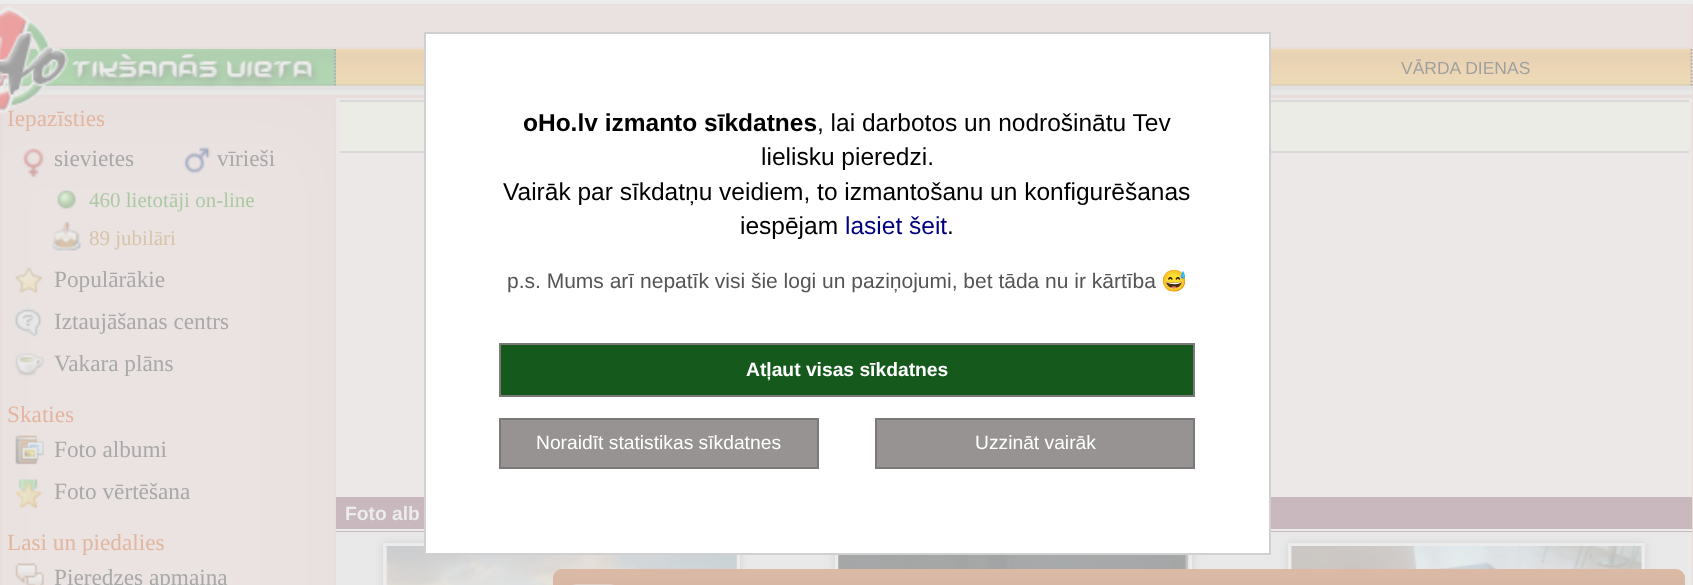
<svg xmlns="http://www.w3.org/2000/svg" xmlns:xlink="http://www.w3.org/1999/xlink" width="1693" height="585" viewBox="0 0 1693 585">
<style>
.cls-1{font:17.5px Liberation Sans;fill:#a0a0a0}
.cls-2{font:23.25px Liberation Serif;fill:#e3b6a0}
.cls-3{font:23.25px Liberation Serif;fill:#a9a9a9}
.cls-4{font:21px Liberation Serif;fill:#adc9a4}
.cls-5{font:21px Liberation Serif;fill:#d8c4a9}
.cls-6{font:bold 19.25px Liberation Sans;fill:#ececec}
.cls-7{font:bold 24.5px Liberation Sans;fill:#000000}
.cls-8{font:24.5px Liberation Sans;fill:#000000}
.cls-9{font:24.5px Liberation Sans;fill:#000080}
.cls-10{font:21px Liberation Sans;fill:#555555}
.cls-11{font:21px Noto Color Emoji;fill:#555555}
.cls-12{font:bold 19.25px Liberation Sans;fill:#ffffff}
.cls-13{font:19.25px Liberation Sans;fill:#ffffff}
</style>
<defs>
<linearGradient id="g1" gradientUnits="userSpaceOnUse" x1="1119" y1="569" x2="1119" y2="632"><stop offset="0" stop-color="#dbb9a5"/><stop offset="1" stop-color="#ceb3a3"/></linearGradient>
</defs>
<rect width="100%" height="100%" fill="#ececec"/>
<rect fill="#e9dddb" x="0" y="4" width="1693" height="581"/>
<rect fill="#eae2e1" x="2" y="5" width="1690" height="42"/>
<rect fill="#eae2e1" x="4" y="85" width="1688" height="10"/>
<image xlink:href="image1.png" x="4" y="49" width="1689" height="37"/>
<image xlink:href="image2.png" x="4" y="49" width="332" height="37"/>
<path fill="none" stroke="#aeaeae" stroke-width="1.8" stroke-dasharray="1.75 1.75" d="M335 49V86"/>
<path fill="none" stroke="#aeaeae" stroke-width="1.8" stroke-dasharray="1.75 1.75" d="M1691.5 49V86"/>
<image xlink:href="image3.png" x="1" y="85" width="1692" height="10"/>
<rect fill="#eae2e1" x="2" y="98" width="332" height="487"/>
<image xlink:href="image4.png" x="2" y="98" width="332" height="487"/>
<image xlink:href="image5.png" x="22" y="148" width="23" height="30"/>
<image xlink:href="image6.png" x="183" y="146" width="28" height="28"/>
<image xlink:href="image7.png" x="57" y="190" width="19" height="19"/>
<image xlink:href="image8.png" x="52" y="222" width="29" height="29"/>
<image xlink:href="image9.png" x="15" y="267" width="28" height="26"/>
<image xlink:href="image10.png" x="13" y="307" width="30" height="30"/>
<image xlink:href="image11.png" x="15" y="353" width="29" height="24"/>
<image xlink:href="image12.png" x="15" y="435" width="29" height="30"/>
<image xlink:href="image13.png" x="15" y="479" width="28" height="29"/>
<image xlink:href="image14.png" x="15" y="563" width="29" height="22"/>
<rect fill="#ece8e8" x="336" y="98" width="1356" height="399"/>
<rect fill="#ecece6" x="340" y="102" width="1349" height="49"/>
<rect fill="#d9d9d9" x="340" y="100" width="1349" height="2"/>
<rect fill="#d9d9d9" x="340" y="151" width="1349" height="2"/>
<rect fill="#c9b9bf" x="336" y="497" width="1356" height="35"/>
<rect fill="#ececec" x="336" y="529" width="1356" height="2"/>
<rect fill="#e9e9e9" x="336" y="532" width="452" height="53"/>
<rect fill="#a0a0a0" fill-opacity="0.3" filter="blur(4.5px)" x="383" y="543" width="357" height="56"/>
<rect fill="none" stroke="#ececec" stroke-width="4" x="385" y="545" width="353" height="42"/>
<image xlink:href="image15.png" x="386" y="546" width="351" height="39"/>
<rect fill="#e9e9e9" x="788" y="555" width="453" height="14"/>
<rect fill="#a0a0a0" fill-opacity="0.3" filter="blur(4.5px)" x="835" y="543" width="357" height="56"/>
<rect fill="none" stroke="#ececec" stroke-width="4" x="837" y="545" width="353" height="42"/>
<image xlink:href="image16.png" x="838" y="555" width="351" height="14"/>
<rect fill="#e9e9e9" x="1241" y="532" width="451" height="53"/>
<rect fill="#a0a0a0" fill-opacity="0.3" filter="blur(4.5px)" x="1288" y="543" width="357" height="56"/>
<rect fill="none" stroke="#ececec" stroke-width="4" x="1290" y="545" width="353" height="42"/>
<image xlink:href="image17.png" x="1291" y="546" width="351" height="23"/>
<rect fill="#ffffff" stroke="#d0d0d0" stroke-width="2" x="425" y="33" width="845" height="521"/>
<rect fill="#155a1c" stroke="#7b7a79" stroke-width="2" x="500" y="344" width="694" height="52"/>
<rect fill="#969392" stroke="#7b7a79" stroke-width="2" x="500" y="419" width="318" height="49"/>
<rect fill="#969392" stroke="#7b7a79" stroke-width="2" x="876" y="419" width="318" height="49"/>
<rect fill="url(#g1)" x="553" y="569" width="1132" height="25" rx="9"/>
<image xlink:href="image18.png" x="572" y="584" width="43" height="1"/>
<text class="cls-1" x="1401" y="74">VĀRDA DIENAS</text>
<text class="cls-2" x="7" y="126">Iepazīsties</text>
<image xlink:href="image0.png" x="0" y="6" width="319" height="108"/>
<text class="cls-3" x="54" y="166">sievietes</text>
<text class="cls-3" x="217" y="166">vīrieši</text>
<text class="cls-4" x="89" y="207">460 lietotāji on-line</text>
<text class="cls-5" x="89" y="245">89 jubilāri</text>
<text class="cls-3"><tspan x="54" y="287">Populārākie</tspan><tspan x="54" y="329">Iztaujāšanas centrs</tspan><tspan x="54" y="371">Vakara plāns</tspan></text>
<text class="cls-2" x="7" y="422">Skaties</text>
<text class="cls-3"><tspan x="54" y="457">Foto albumi</tspan><tspan x="54" y="499">Foto vērtēšana</tspan></text>
<text class="cls-2" x="7" y="550">Lasi un piedalies</text>
<text class="cls-3" x="54" y="585">Pieredzes apmaiņa</text>
<text class="cls-6" x="345" y="520">Foto alb</text>
<text class="cls-7" x="523" y="131">oHo.lv izmanto sīkdatnes</text>
<text class="cls-8" x="817" y="131">, lai darbotos un nodrošinātu Tev</text>
<text class="cls-8" x="761" y="165">lielisku pieredzi.</text>
<text class="cls-8" x="503" y="200">Vairāk par sīkdatņu veidiem, to izmantošanu un konfigurēšanas</text>
<text class="cls-8" x="740" y="234">iespējam</text>
<text class="cls-9" x="845" y="234">lasiet šeit</text>
<text class="cls-8" x="947" y="234">.</text>
<text class="cls-10" x="507" y="288">p.s. Mums arī nepatīk visi šie logi un paziņojumi, bet tāda nu ir kārtība</text>
<text class="cls-11" x="1161" y="288">😅</text>
<text class="cls-12" x="746" y="376">Atļaut visas sīkdatnes</text>
<text class="cls-13" x="536" y="449">Noraidīt statistikas sīkdatnes</text>
<text class="cls-13" x="975" y="449">Uzzināt vairāk</text>
</svg>
